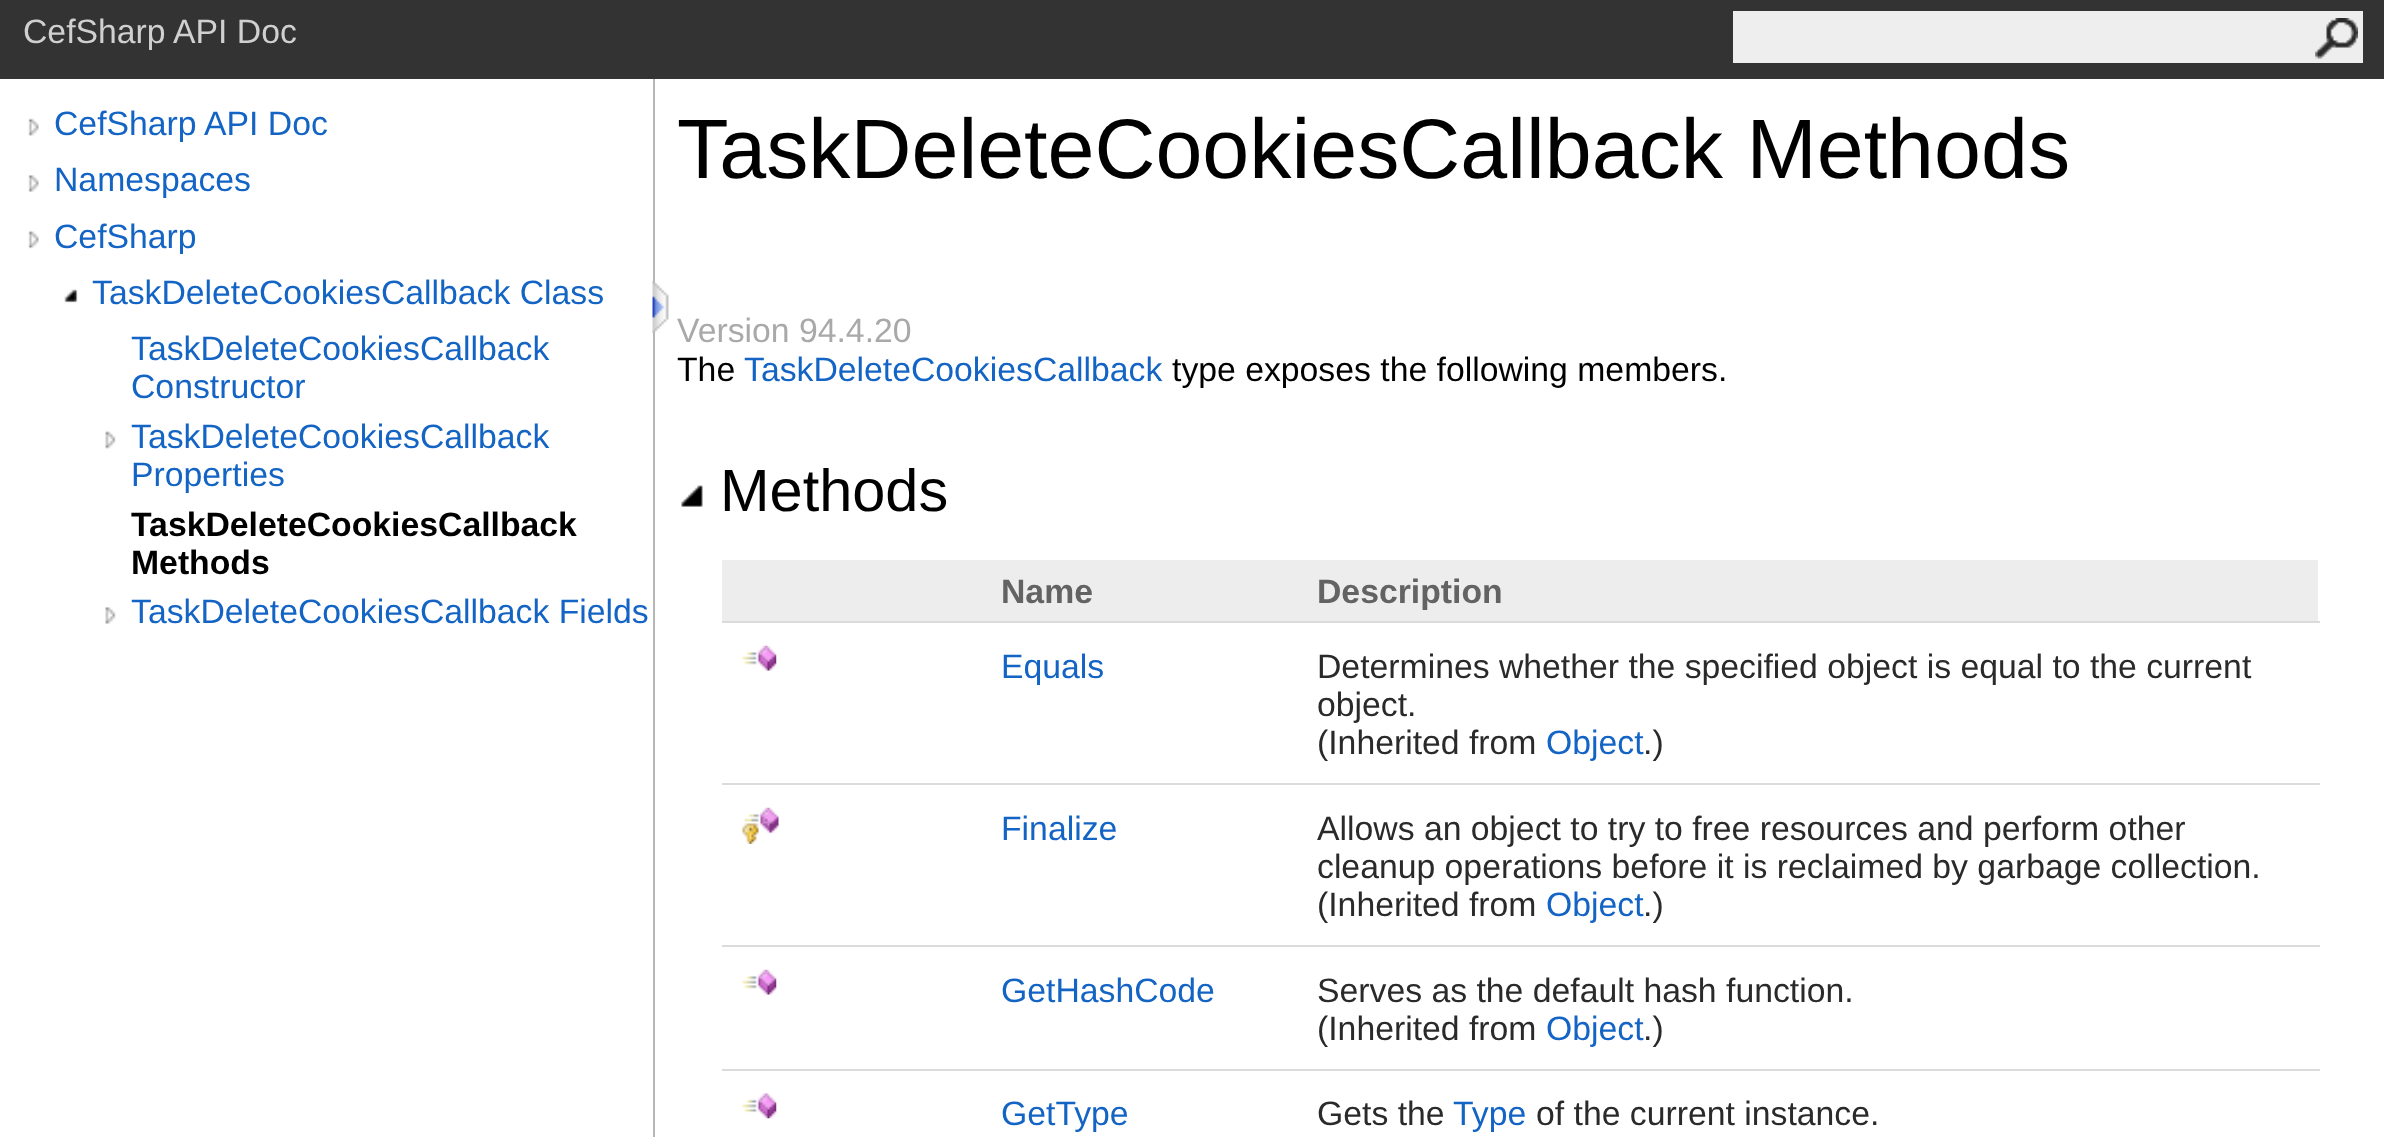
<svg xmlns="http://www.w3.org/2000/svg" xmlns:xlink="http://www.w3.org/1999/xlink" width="2384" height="1137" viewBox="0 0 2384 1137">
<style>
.cls-1{font:33.75px Liberation Sans;fill:#d0d0d0}
.cls-2{font:33.75px Liberation Sans;fill:#1364c4}
.cls-3{font:bold 33.75px Liberation Sans;fill:#000000}
.cls-4{font:84.4px Liberation Sans;fill:#000000}
.cls-5{font:33.75px Liberation Sans;fill:#a9a9a9}
.cls-6{font:33.75px Liberation Sans;fill:#000000}
.cls-7{font:59.5px Liberation Sans;fill:#000000}
.cls-8{font:bold 33.75px Liberation Sans;fill:#636363}
.cls-9{font:33.75px Liberation Sans;fill:#2a2a2a}
</style>
<defs>
<clipPath id="clip1"><rect x="54" y="216" width="599" height="38"/></clipPath>
<clipPath id="clip2"><rect x="131" y="504" width="522" height="77"/></clipPath>
</defs>
<rect width="100%" height="100%" fill="#ffffff"/>
<rect fill="#333333" x="0" y="0" width="2384" height="79"/>
<rect fill="#eeeeee" x="1733" y="11" width="630" height="52"/>
<image xlink:href="image0.png" x="2315" y="18" width="43" height="41"/>
<rect fill="#b6b6b6" x="653" y="79" width="2" height="1058"/>
<image xlink:href="image1.png" x="28" y="118" width="11" height="18"/>
<image xlink:href="image2.png" x="28" y="175" width="11" height="17"/>
<image xlink:href="image3.png" x="28" y="231" width="11" height="18"/>
<image xlink:href="image4.png" x="64" y="289" width="14" height="14"/>
<image xlink:href="image5.png" x="105" y="431" width="11" height="18"/>
<image xlink:href="image6.png" x="105" y="607" width="11" height="17"/>
<image xlink:href="image7.png" x="652" y="281" width="17" height="52"/>
<image xlink:href="image8.png" x="681" y="485" width="22" height="22"/>
<rect fill="#ededed" x="722" y="560" width="1596" height="61"/>
<rect fill="#dbdbdb" x="722" y="621" width="1598" height="2"/>
<image xlink:href="image9.png" x="742" y="645" width="35" height="26"/>
<rect fill="#dbdbdb" x="722" y="783" width="1598" height="2"/>
<image xlink:href="image10.png" x="742" y="807" width="37" height="37"/>
<rect fill="#dbdbdb" x="722" y="945" width="1598" height="2"/>
<image xlink:href="image9.png" x="742" y="969" width="35" height="26"/>
<rect fill="#dbdbdb" x="722" y="1069" width="1598" height="2"/>
<image xlink:href="image11.png" x="742" y="1093" width="35" height="26"/>
<text class="cls-1" x="23" y="43">CefSharp API Doc</text>
<text class="cls-2"><tspan x="54" y="135">CefSharp API Doc</tspan><tspan x="54" y="191">Namespaces</tspan></text>
<g clip-path="url(#clip1)">
<text class="cls-2" x="54" y="248">CefSharp</text>
</g>
<text class="cls-2" x="92" y="304">TaskDeleteCookiesCallback Class</text>
<text class="cls-2"><tspan x="131" y="360">TaskDeleteCookiesCallback</tspan><tspan x="131" y="398">Constructor</tspan><tspan x="131" y="448">TaskDeleteCookiesCallback</tspan><tspan x="131" y="486">Properties</tspan></text>
<g clip-path="url(#clip2)">
<text class="cls-3" x="131" y="536">TaskDeleteCookiesCallback</text>
</g>
<text class="cls-3" x="131" y="574">Methods</text>
<text class="cls-2" x="131" y="623">TaskDeleteCookiesCallback Fields</text>
<text class="cls-4" x="677" y="178">TaskDeleteCookiesCallback Methods</text>
<text class="cls-5" x="677" y="342">Version 94.4.20</text>
<text class="cls-6" x="677" y="381">The</text>
<text class="cls-2" x="744" y="381">TaskDeleteCookiesCallback</text>
<text class="cls-6" x="1172" y="381">type exposes the following members.</text>
<text class="cls-7" x="720" y="511">Methods</text>
<text class="cls-8" x="1001" y="603">Name</text>
<text class="cls-8" x="1317" y="603">Description</text>
<text class="cls-2" x="1001" y="678">Equals</text>
<text class="cls-9"><tspan x="1317" y="678">Determines whether the specified object is equal to the current</tspan><tspan x="1317" y="716">object.</tspan><tspan x="1317" y="754">(Inherited from</tspan></text>
<text class="cls-2" x="1546" y="754">Object</text>
<text class="cls-9" x="1643" y="754">.)</text>
<text class="cls-2" x="1001" y="840">Finalize</text>
<text class="cls-9"><tspan x="1317" y="840">Allows an object to try to free resources and perform other</tspan><tspan x="1317" y="878">cleanup operations before it is reclaimed by garbage collection.</tspan><tspan x="1317" y="916">(Inherited from</tspan></text>
<text class="cls-2" x="1546" y="916">Object</text>
<text class="cls-9" x="1643" y="916">.)</text>
<text class="cls-2" x="1001" y="1002">GetHashCode</text>
<text class="cls-9"><tspan x="1317" y="1002">Serves as the default hash function.</tspan><tspan x="1317" y="1040">(Inherited from</tspan></text>
<text class="cls-2" x="1546" y="1040">Object</text>
<text class="cls-9" x="1643" y="1040">.)</text>
<text class="cls-2" x="1001" y="1125">GetType</text>
<text class="cls-9" x="1317" y="1125">Gets the</text>
<text class="cls-2" x="1453" y="1125">Type</text>
<text class="cls-9" x="1536" y="1125">of the current instance.</text>
</svg>
